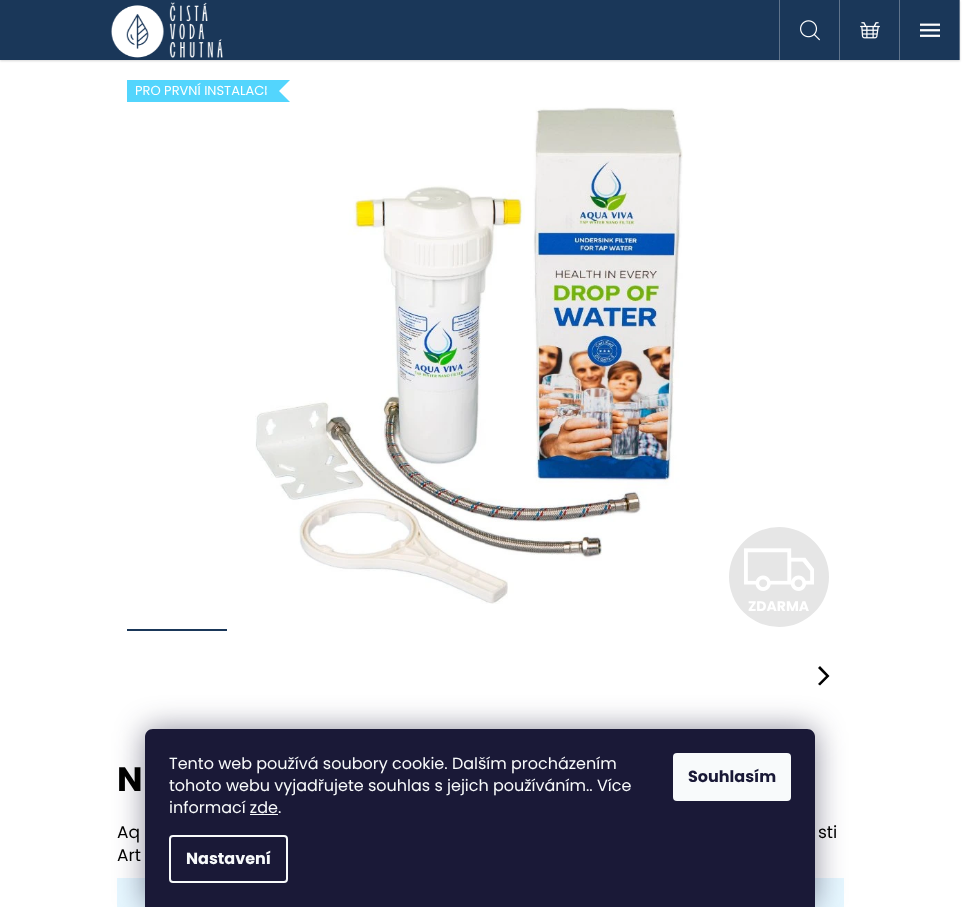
<svg xmlns="http://www.w3.org/2000/svg" xmlns:xlink="http://www.w3.org/1999/xlink" width="975" height="907" viewBox="0 0 975 907">
<style>
.cls-1{font:13px Poppins;fill:#ffffff}
.cls-2{font:bold 14px Poppins;fill:#ffffff}
.cls-3{font:bold 34px Poppins;fill:#000000}
.cls-4{font:17px Poppins;fill:#000000}
.cls-5{font:16px Poppins;fill:#f8fafb}
.cls-6{font:bold 16px Poppins;fill:#f8fafb}
.cls-7{font:bold 16px Poppins;fill:#1a1937}
</style>
<rect width="100%" height="100%" fill="#ffffff"/>
<rect fill="#000000" fill-opacity="0.16" filter="blur(1px)" x="0" y="1" width="960" height="60"/>
<rect fill="#1a3759" x="0" y="0" width="959" height="60"/>
<image xlink:href="image0.png" x="111" y="2" width="112" height="56"/>
<rect fill="#5f738b" x="959" y="0" width="1" height="60"/>
<rect fill="#5f738b" x="779" y="0" width="1" height="60"/>
<image xlink:href="image1.png" x="800" y="20" width="20" height="21"/>
<rect fill="#5f738b" x="839" y="0" width="1" height="60"/>
<image xlink:href="image2.png" x="860" y="22" width="20" height="17"/>
<rect fill="#5f738b" x="899" y="0" width="1" height="60"/>
<image xlink:href="image3.png" x="920" y="23" width="20" height="14"/>
<rect fill="#53d5fd" x="127" y="80" width="151" height="22"/>
<image xlink:href="image4.png" x="255" y="107" width="428" height="497"/>
<circle fill="#e6e6e6" cx="779" cy="577" r="50"/>
<image xlink:href="image5.png" x="744" y="548" width="70" height="43"/>
<rect fill="#1a3759" x="127" y="629" width="100" height="2"/>
<path fill="#000000" d="M820 685.5L818 684L826 676L818 668L820 666L829.5 676Z"/>
<rect fill="#e6f7ff" x="117" y="878" width="727" height="29"/>
<rect fill="#1b1939" fill-opacity="0.5" filter="blur(15px)" x="145" y="729" width="670" height="178" rx="8"/>
<path fill="#1a1937" d="M153 729H807C811.5 729 815 732.5 815 737V907H145V737C145 732.5 148.5 729 153 729Z"/>
<rect fill="#f8fafb" x="250" y="814" width="28" height="1"/>
<rect fill="none" stroke="#f8fafb" stroke-width="2" x="170" y="836" width="117" height="46" rx="3"/>
<rect fill="#f8fafb" x="673" y="753" width="118" height="48" rx="4"/>
<text class="cls-1" x="135" y="95">PRO PRVNÍ INSTALACI</text>
<path fill="#53d5fd" d="M266 90H278L290 102H278Z"/>
<path fill="#53d5fd" d="M278 80H290L278 92H266Z"/>
<text class="cls-2" x="748" y="611">ZDARMA</text>
<text class="cls-3" x="117" y="791">N</text>
<text class="cls-4" x="117" y="838">Aq</text>
<text class="cls-4" x="818" y="838">sti</text>
<text class="cls-4" x="117" y="861">Art</text>
<text class="cls-5"><tspan x="169" y="769">Tento web používá soubory cookie. Dalším procházením</tspan><tspan x="169" y="791">tohoto webu vyjadřujete souhlas s jejich používáním.. Více</tspan><tspan x="169" y="813">informací zde.</tspan></text>
<text class="cls-6" x="186" y="864">Nastavení</text>
<text class="cls-7" x="688" y="782">Souhlasím</text>
</svg>
